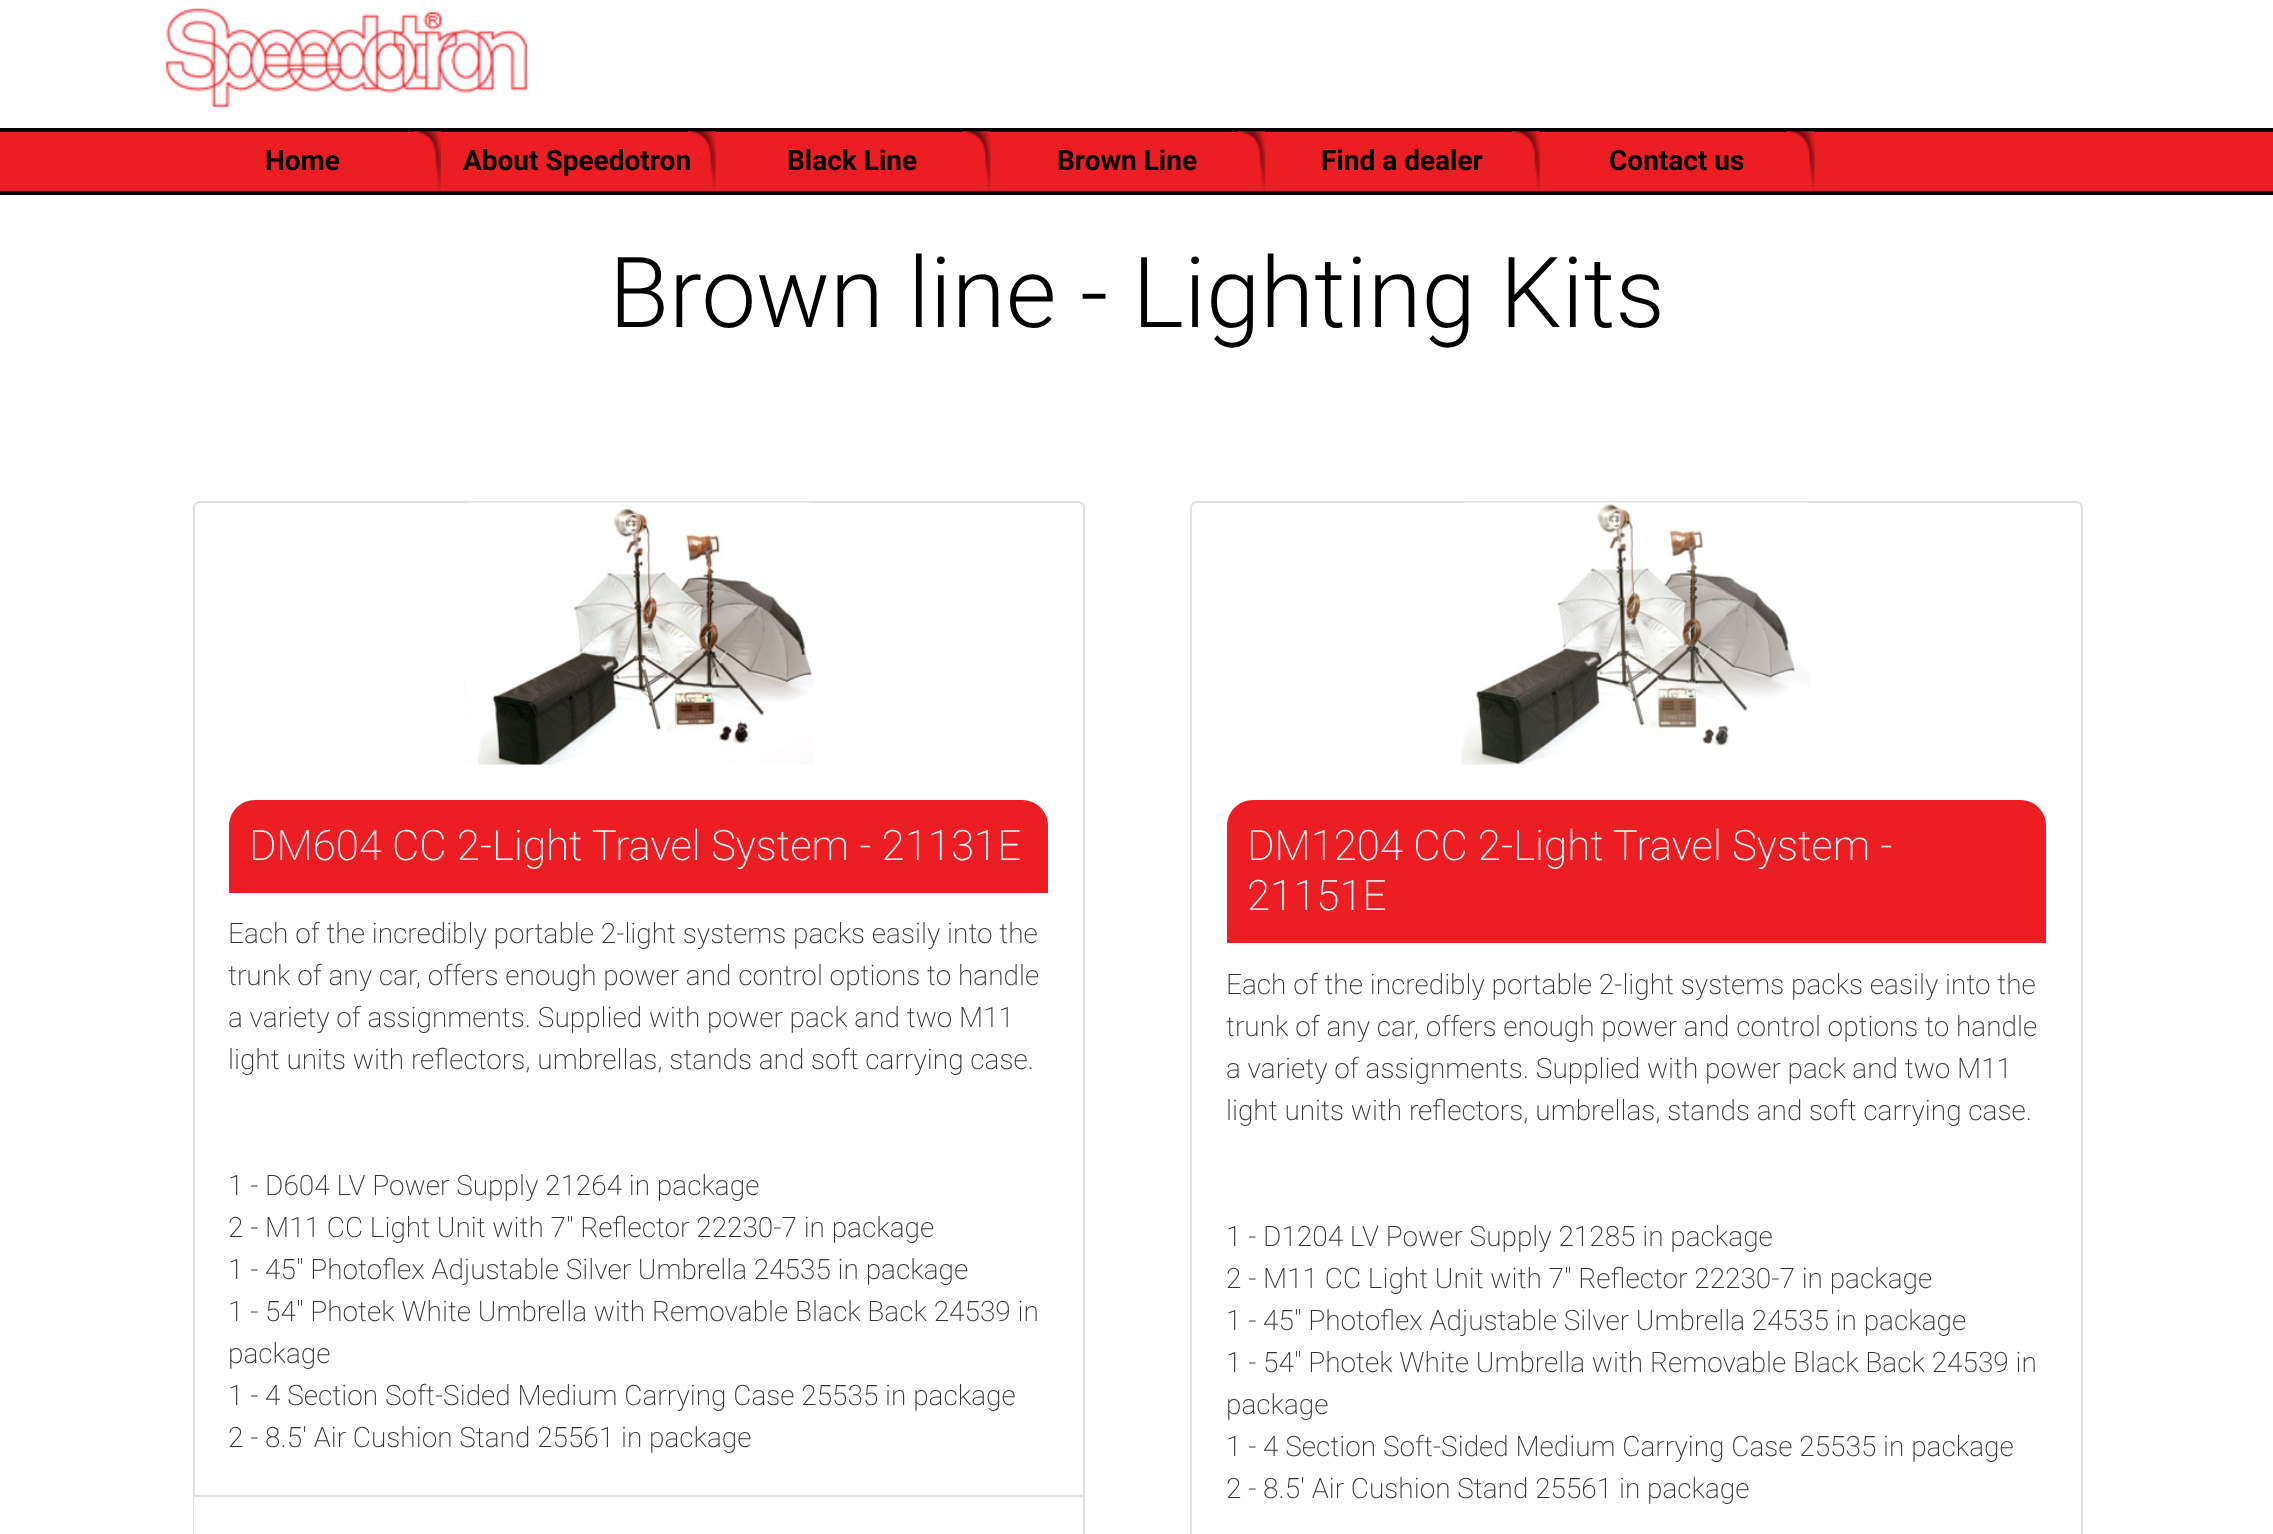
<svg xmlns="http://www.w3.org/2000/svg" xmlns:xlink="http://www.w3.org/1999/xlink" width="2273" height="1534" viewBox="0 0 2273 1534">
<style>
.cls-1{font:bold 28px Roboto;fill:#000000}
.cls-2{font:300 98px Roboto;fill:#000000}
.cls-3{font:200 42px Roboto;fill:#ffffff}
.cls-4{font:200 28px Roboto;fill:#333333}
</style>
<rect width="100%" height="100%" fill="#ffffff"/>
<image xlink:href="image0.png" x="166" y="8" width="361" height="99"/>
<rect fill="#ed1d24" x="0" y="132" width="2273" height="59"/>
<rect fill="#000000" x="0" y="128" width="2273" height="4"/>
<rect fill="#000000" x="0" y="191" width="2273" height="4"/>
<image xlink:href="image1.png" x="413" y="131" width="28" height="60"/>
<image xlink:href="image2.png" x="687" y="131" width="29" height="60"/>
<image xlink:href="image3.png" x="962" y="131" width="29" height="60"/>
<image xlink:href="image4.png" x="1237" y="131" width="29" height="60"/>
<image xlink:href="image5.png" x="1512" y="131" width="28" height="60"/>
<image xlink:href="image2.png" x="1786" y="131" width="29" height="60"/>
<rect fill="none" stroke="#dfdfdf" stroke-width="2" x="194" y="502" width="890" height="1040" rx="6"/>
<image xlink:href="image6.png" x="464" y="502" width="350" height="263"/>
<path fill="#ed1d24" d="M255 800H1022C1036.5 800 1048 811.5 1048 826V893H229V826C229 811.5 240.5 800 255 800Z"/>
<rect fill="#ffffff" x="194" y="1497" width="1" height="37"/>
<rect fill="#dfdfdf" x="194" y="1495" width="889" height="2"/>
<rect fill="none" stroke="#dfdfdf" stroke-width="2" x="1191" y="502" width="891" height="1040" rx="6"/>
<image xlink:href="image7.png" x="1461" y="502" width="350" height="263"/>
<path fill="#ed1d24" d="M1253 800H2020C2034.5 800 2046 811.5 2046 826V943H1227V826C1227 811.5 1238.5 800 1253 800Z"/>
<text class="cls-1" x="265" y="170">Home</text>
<text class="cls-1" x="463" y="170">About Speedotron</text>
<text class="cls-1" x="787" y="170">Black Line</text>
<text class="cls-1" x="1057" y="170">Brown Line</text>
<text class="cls-1" x="1321" y="170">Find a dealer</text>
<text class="cls-1" x="1609" y="170">Contact us</text>
<text class="cls-2" x="609" y="327">Brown line - Lighting Kits</text>
<text class="cls-3" x="249" y="860">DM604 CC 2-Light Travel System - 21131E</text>
<text class="cls-4"><tspan x="228" y="943">Each of the incredibly portable 2-light systems packs easily into the</tspan><tspan x="228" y="985">trunk of any car, offers enough power and control options to handle</tspan><tspan x="228" y="1027">a variety of assignments. Supplied with power pack and two M11</tspan><tspan x="228" y="1069">light units with reflectors, umbrellas, stands and soft carrying case.</tspan></text>
<text class="cls-4"><tspan x="228" y="1195">1 - D604 LV Power Supply 21264 in package</tspan><tspan x="228" y="1237">2 - M11 CC Light Unit with 7" Reflector 22230-7 in package</tspan><tspan x="228" y="1279">1 - 45" Photoflex Adjustable Silver Umbrella 24535 in package</tspan><tspan x="228" y="1321">1 - 54" Photek White Umbrella with Removable Black Back 24539 in</tspan><tspan x="228" y="1363">package</tspan><tspan x="228" y="1405">1 - 4 Section Soft-Sided Medium Carrying Case 25535 in package</tspan><tspan x="228" y="1447">2 - 8.5' Air Cushion Stand 25561 in package</tspan></text>
<text class="cls-3"><tspan x="1247" y="860">DM1204 CC 2-Light Travel System -</tspan><tspan x="1247" y="910">21151E</tspan></text>
<text class="cls-4"><tspan x="1226" y="994">Each of the incredibly portable 2-light systems packs easily into the</tspan><tspan x="1226" y="1036">trunk of any car, offers enough power and control options to handle</tspan><tspan x="1226" y="1078">a variety of assignments. Supplied with power pack and two M11</tspan><tspan x="1226" y="1120">light units with reflectors, umbrellas, stands and soft carrying case.</tspan></text>
<text class="cls-4"><tspan x="1226" y="1246">1 - D1204 LV Power Supply 21285 in package</tspan><tspan x="1226" y="1288">2 - M11 CC Light Unit with 7" Reflector 22230-7 in package</tspan><tspan x="1226" y="1330">1 - 45" Photoflex Adjustable Silver Umbrella 24535 in package</tspan><tspan x="1226" y="1372">1 - 54" Photek White Umbrella with Removable Black Back 24539 in</tspan><tspan x="1226" y="1414">package</tspan><tspan x="1226" y="1456">1 - 4 Section Soft-Sided Medium Carrying Case 25535 in package</tspan><tspan x="1226" y="1498">2 - 8.5' Air Cushion Stand 25561 in package</tspan></text>
</svg>
